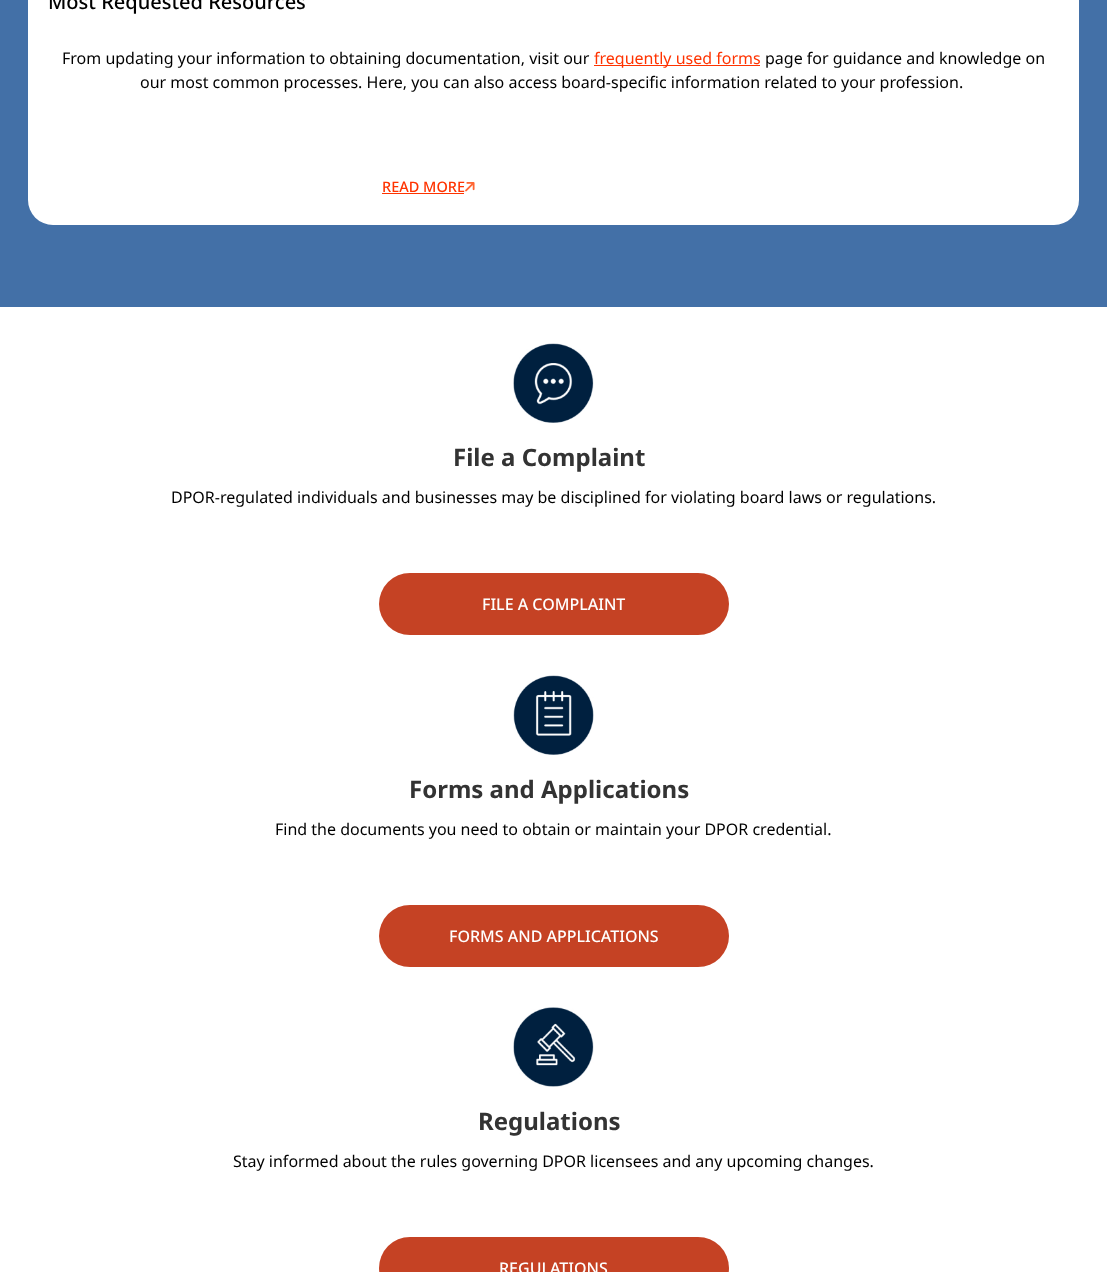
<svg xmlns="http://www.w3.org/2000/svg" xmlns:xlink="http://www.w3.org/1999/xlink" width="1107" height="1272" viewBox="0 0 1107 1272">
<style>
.cls-1{font:500 20px Noto Sans;fill:#000000}
.cls-2{font:16px Noto Sans;fill:#000000}
.cls-3{font:16px Noto Sans;fill:#ff3300}
.cls-4{font:500 14.5px Noto Sans;fill:#ff3300}
.cls-5{font:bold 24px Noto Sans;fill:#333333}
.cls-6{font:500 16px Noto Sans;fill:#ffffff}
</style>
<rect width="100%" height="100%" fill="#ffffff"/>
<rect fill="#4370a7" x="0" y="0" width="1107" height="307"/>
<rect fill="#ffffff" x="28" y="-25" width="1051" height="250" rx="25"/>
<rect fill="#ff3300" x="594" y="65" width="166" height="1"/>
<rect fill="#ff3300" x="382" y="193" width="82" height="1"/>
<image xlink:href="image0.png" x="465" y="182" width="10" height="10"/>
<image xlink:href="image1.png" x="513" y="343" width="81" height="80"/>
<rect fill="#c54224" x="379" y="573" width="350" height="62" rx="31"/>
<image xlink:href="image2.png" x="513" y="675" width="81" height="80"/>
<rect fill="#c54224" x="379" y="905" width="350" height="62" rx="31"/>
<image xlink:href="image3.png" x="513" y="1007" width="81" height="80"/>
<rect fill="#c54224" x="379" y="1237" width="350" height="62" rx="31"/>
<text class="cls-1" x="48" y="9">Most Requested Resources</text>
<text class="cls-2" x="62" y="64">From updating your information to obtaining documentation, visit our</text>
<text class="cls-3" x="594" y="64">frequently used forms</text>
<text class="cls-2" x="765" y="64">page for guidance and knowledge on</text>
<text class="cls-2" x="140" y="88">our most common processes. Here, you can also access board-specific information related to your profession.</text>
<text class="cls-4" x="382" y="192">READ MORE</text>
<text class="cls-5" x="453" y="466">File a Complaint</text>
<text class="cls-2" x="171" y="503">DPOR-regulated individuals and businesses may be disciplined for violating board laws or regulations.</text>
<text class="cls-6" x="482" y="610">FILE A COMPLAINT</text>
<text class="cls-5" x="409" y="798">Forms and Applications</text>
<text class="cls-2" x="275" y="835">Find the documents you need to obtain or maintain your DPOR credential.</text>
<text class="cls-6" x="449" y="942">FORMS AND APPLICATIONS</text>
<text class="cls-5" x="478" y="1130">Regulations</text>
<text class="cls-2" x="233" y="1167">Stay informed about the rules governing DPOR licensees and any upcoming changes.</text>
<text class="cls-6" x="499" y="1274">REGULATIONS</text>
</svg>
